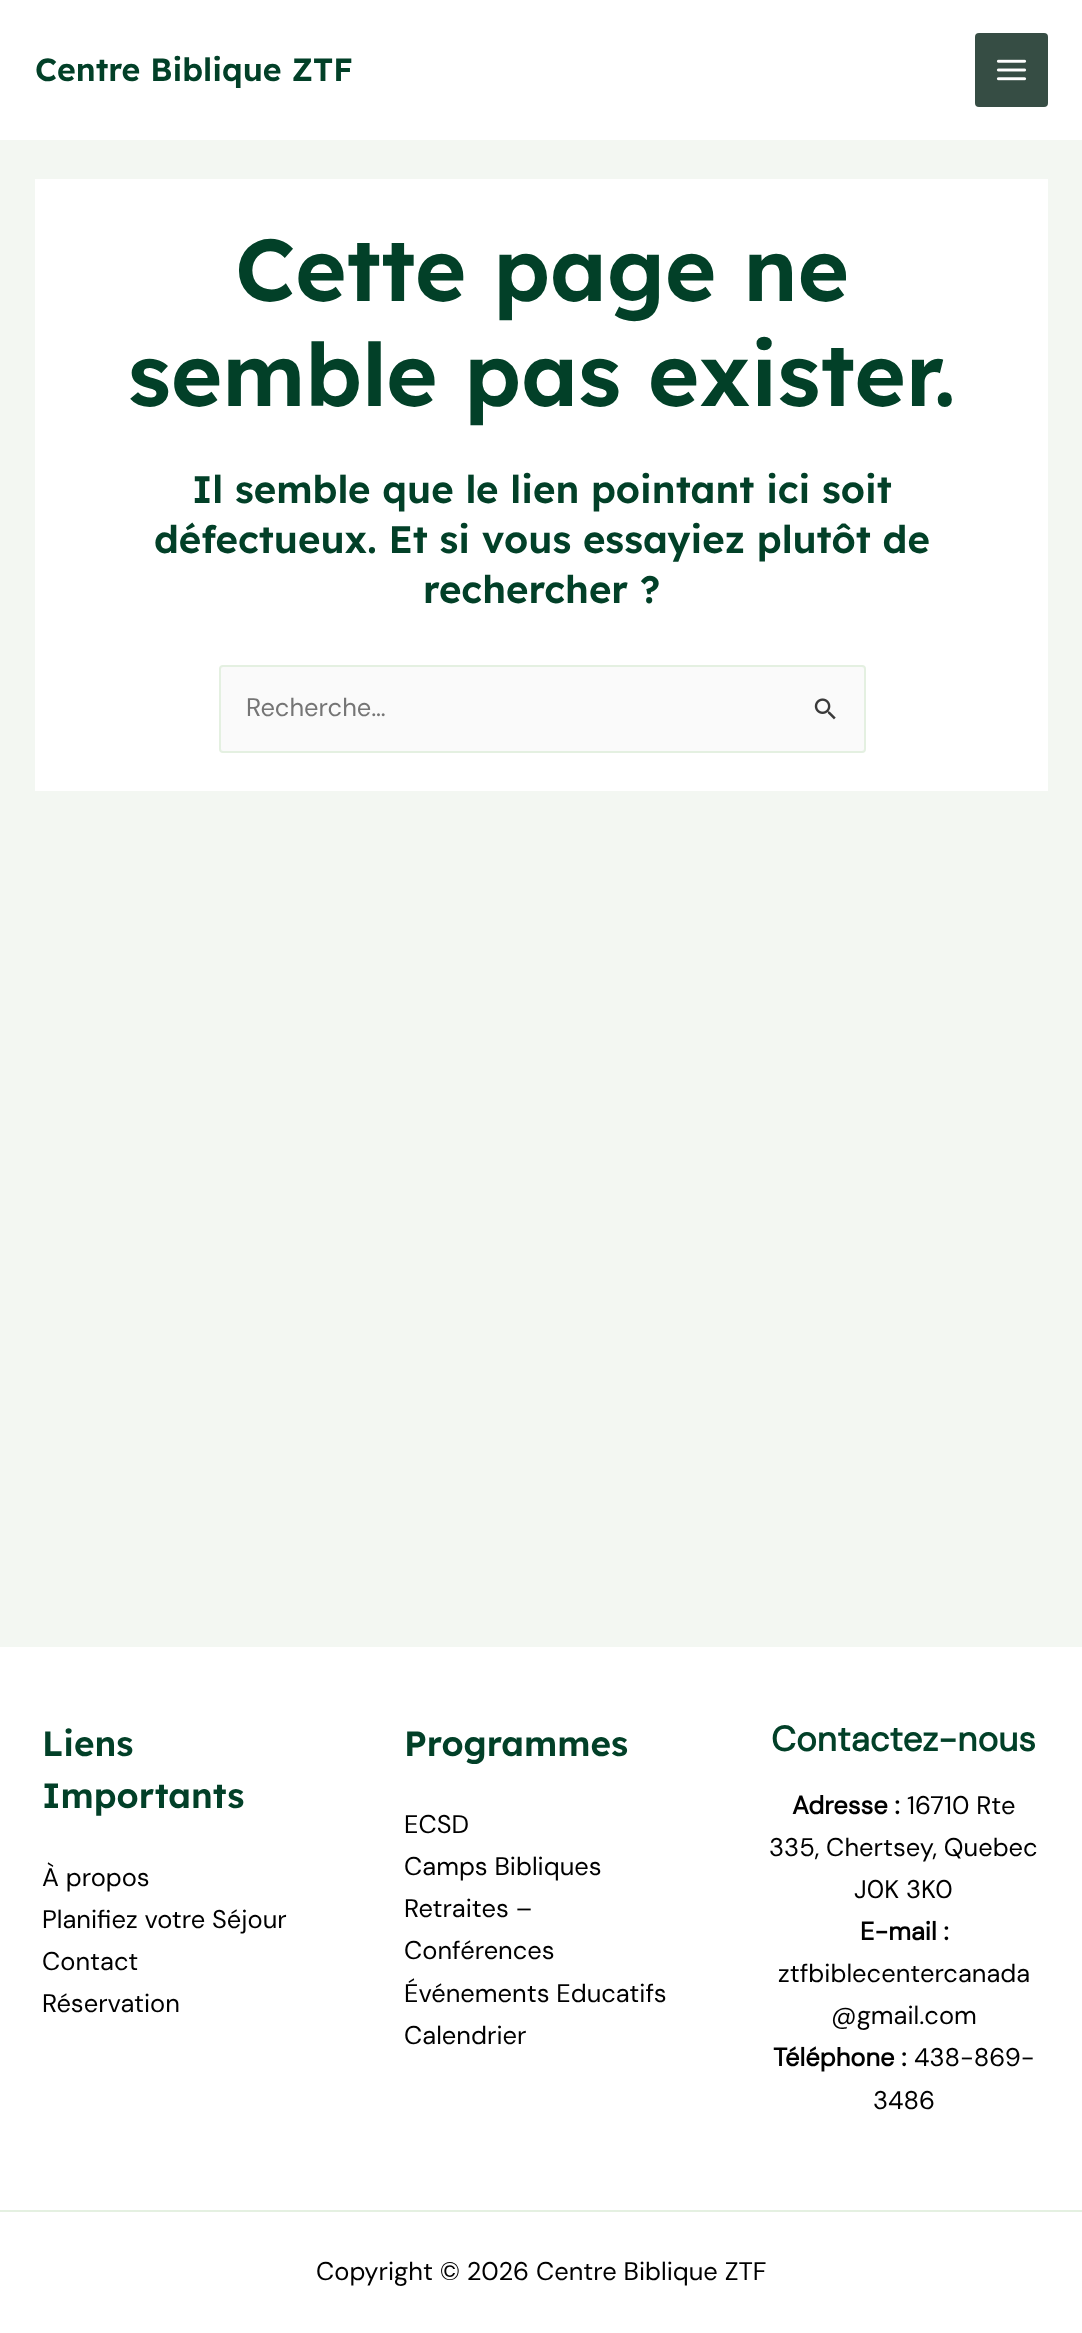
<svg xmlns="http://www.w3.org/2000/svg" xmlns:xlink="http://www.w3.org/1999/xlink" width="1082" height="2333" viewBox="0 0 1082 2333">
<style>
.cls-1{font:600 32px Lexend;fill:#024028}
.cls-2{font:600 87.5px Lexend;fill:#024028}
.cls-3{font:600 38.3px Lexend;fill:#024028}
.cls-4{font:25.5px DM Sans;fill:#757575}
.cls-5{font:600 35px Lexend;fill:#024028}
.cls-6{font:25.5px DM Sans;fill:#000000}
.cls-7{font:bold 35px DM Sans;fill:#024028}
.cls-8{font:bold 25.5px DM Sans;fill:#000000}
</style>
<rect width="100%" height="100%" fill="#f3f7f2"/>
<rect fill="#ffffff" x="0" y="0" width="1082" height="140"/>
<rect fill="#364d44" x="975" y="33" width="73" height="74" rx="4"/>
<image xlink:href="image0.png" x="996" y="59" width="31" height="22"/>
<rect fill="#ffffff" x="35" y="179" width="1013" height="612"/>
<rect fill="#fafafa" stroke="#e4f0e1" stroke-width="2" x="220" y="666" width="645" height="86" rx="3"/>
<image xlink:href="image1.png" x="814" y="698" width="22" height="22"/>
<rect fill="#ffffff" x="0" y="1647" width="1082" height="563"/>
<rect fill="#ffffff" x="0" y="2212" width="1082" height="121"/>
<rect fill="#e4f0e1" x="0" y="2210" width="1082" height="2"/>
<text class="cls-1" x="35" y="81">Centre Biblique ZTF</text>
<text class="cls-2" x="235" y="301">Cette page ne</text>
<text class="cls-2" x="128" y="406">semble pas exister.</text>
<text class="cls-3" x="192" y="503">Il semble que le lien pointant ici soit</text>
<text class="cls-3" x="154" y="553">défectueux. Et si vous essayiez plutôt de</text>
<text class="cls-3" x="423" y="603">rechercher ?</text>
<text class="cls-4" x="246" y="716">Recherche…</text>
<text class="cls-5"><tspan x="42" y="1756">Liens</tspan><tspan x="42" y="1808">Importants</tspan></text>
<text class="cls-6"><tspan x="42" y="1886">À propos</tspan><tspan x="42" y="1928">Planifiez votre Séjour</tspan><tspan x="42" y="1970">Contact</tspan><tspan x="42" y="2012">Réservation</tspan></text>
<text class="cls-5" x="404" y="1756">Programmes</text>
<text class="cls-6"><tspan x="404" y="1833">ECSD</tspan><tspan x="404" y="1875">Camps Bibliques</tspan><tspan x="404" y="1917">Retraites –</tspan><tspan x="404" y="1959">Conférences</tspan><tspan x="404" y="2002">Événements Educatifs</tspan><tspan x="404" y="2044">Calendrier</tspan></text>
<text class="cls-7" x="771" y="1751">Contactez-nous</text>
<text class="cls-8" x="792" y="1814">Adresse :</text>
<text class="cls-6" x="907" y="1814">16710 Rte</text>
<text class="cls-6" x="769" y="1856">335, Chertsey, Quebec</text>
<text class="cls-6" x="854" y="1898">J0K 3K0</text>
<text class="cls-8" x="860" y="1940">E-mail :</text>
<text class="cls-6" x="778" y="1982">ztfbiblecentercanada</text>
<text class="cls-6" x="831" y="2024">@gmail.com</text>
<text class="cls-8" x="773" y="2066">Téléphone :</text>
<text class="cls-6" x="914" y="2066">438-869-</text>
<text class="cls-6" x="873" y="2109">3486</text>
<text class="cls-6" x="316" y="2280">Copyright © 2026 Centre Biblique ZTF</text>
</svg>
